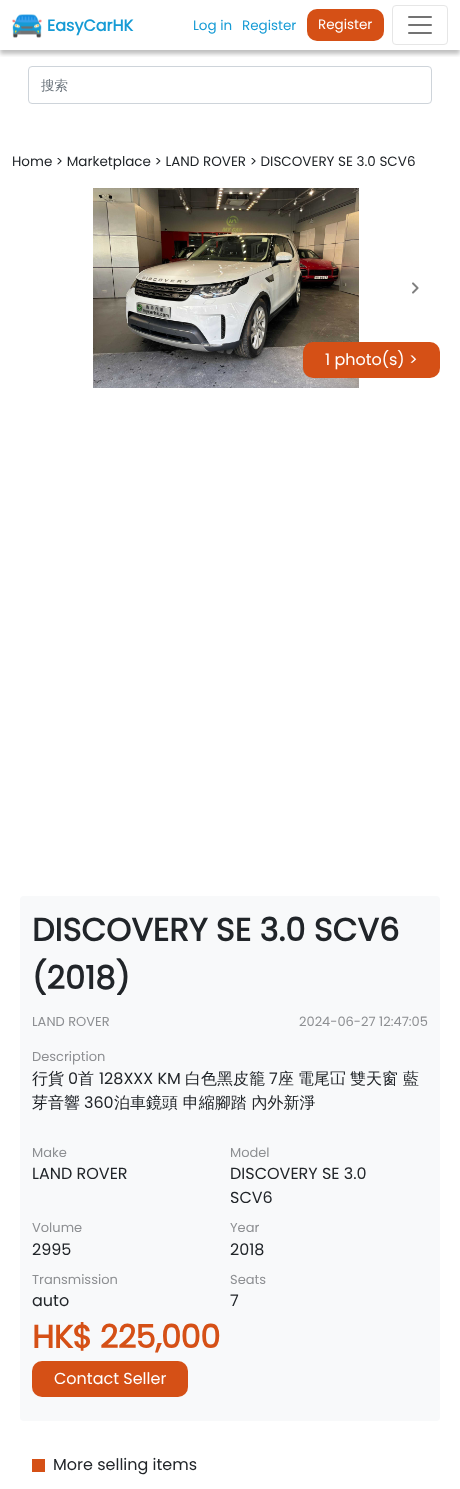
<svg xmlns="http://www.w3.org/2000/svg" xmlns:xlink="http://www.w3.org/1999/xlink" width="460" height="1489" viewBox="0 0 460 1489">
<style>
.cls-1{font:bold 16px Poppins;fill:#169bd5}
.cls-2{font:13.5px Poppins;fill:#169bd5}
.cls-3{font:13.5px Poppins;fill:#ffffff}
.cls-4{font:500 13.5px WenQuanYi Zen Hei;fill:#6c757d}
.cls-5{font:13.5px Poppins;fill:#212529}
.cls-6{font:16px Poppins;fill:#ffffff}
.cls-7{font:bold 32px Poppins;fill:#212529}
.cls-8{font:13px Poppins;fill:#8d8f92}
.cls-9{font:500 16px WenQuanYi Zen Hei;fill:#212529}
.cls-10{font:16px Poppins;fill:#212529}
.cls-11{font:bold 32px Poppins;letter-spacing:-0.5px;fill:#d55016}
</style>
<defs>
<clipPath id="clip1"><rect x="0" y="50" width="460" height="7"/></clipPath>
</defs>
<rect width="100%" height="100%" fill="#ffffff"/>
<g clip-path="url(#clip1)">
<rect fill="#000000" fill-opacity="0.25" filter="blur(2px)" x="0" y="4" width="460" height="50"/>
</g>
<image xlink:href="image0.png" x="12" y="14" width="30" height="24"/>
<rect fill="#d55016" x="307" y="9" width="77" height="32" rx="10"/>
<rect fill="none" stroke="#e6e6e6" x="392.5" y="5.5" width="55" height="39" rx="3.5"/>
<image xlink:href="image1.png" x="408" y="16" width="24" height="18"/>
<rect fill="none" stroke="#ced4da" x="28.5" y="66.5" width="403" height="37" rx="3.5"/>
<image xlink:href="image2.png" x="93" y="188" width="266" height="200"/>
<image xlink:href="image3.png" x="412" y="282" width="7" height="12"/>
<rect fill="#d55016" x="303" y="342" width="137" height="36" rx="10"/>
<rect fill="#f8f9fa" x="20" y="896" width="420" height="525" rx="4"/>
<rect fill="#d55016" x="32" y="1361" width="156" height="36" rx="10"/>
<rect fill="#d55016" x="32" y="1459" width="13" height="13"/>
<text class="cls-1" x="47" y="31">EasyCarHK</text>
<text class="cls-2" x="193" y="30">Log in</text>
<text class="cls-2" x="242" y="30">Register</text>
<text class="cls-3" x="318" y="29">Register</text>
<text class="cls-4" x="41" y="90">搜索</text>
<text class="cls-5" x="12" y="166">Home &gt; Marketplace &gt; LAND ROVER &gt; DISCOVERY SE 3.0 SCV6</text>
<text class="cls-6" x="325" y="365">1 photo(s) &gt;</text>
<text class="cls-7"><tspan x="32" y="941">DISCOVERY SE 3.0 SCV6</tspan><tspan x="32" y="989">(2018)</tspan></text>
<text class="cls-8" x="32" y="1026">LAND ROVER</text>
<text class="cls-8" x="299" y="1026">2024-06-27 12:47:05</text>
<text class="cls-8" x="32" y="1061">Description</text>
<text class="cls-9" x="32" y="1084">行貨</text>
<text class="cls-10" x="68" y="1084">0</text>
<text class="cls-9" x="78" y="1084">首</text>
<text class="cls-10" x="99" y="1084">128XXX KM</text>
<text class="cls-9" x="185" y="1084">白色黑皮籠</text>
<text class="cls-10" x="269" y="1084">7</text>
<text class="cls-9" x="278" y="1084">座</text>
<text class="cls-9" x="298" y="1084">電尾冚</text>
<text class="cls-9" x="350" y="1084">雙天窗</text>
<text class="cls-9" x="403" y="1084">藍</text>
<text class="cls-9" x="32" y="1108">芽音響</text>
<text class="cls-10" x="84" y="1108">360</text>
<text class="cls-9" x="114" y="1108">泊車鏡頭 申縮腳踏 內外新淨</text>
<text class="cls-8" x="32" y="1157">Make</text>
<text class="cls-10" x="32" y="1179">LAND ROVER</text>
<text class="cls-8" x="230" y="1157">Model</text>
<text class="cls-10"><tspan x="230" y="1179">DISCOVERY SE 3.0</tspan><tspan x="230" y="1203">SCV6</tspan></text>
<text class="cls-8" x="32" y="1232">Volume</text>
<text class="cls-10" x="32" y="1255">2995</text>
<text class="cls-8" x="230" y="1232">Year</text>
<text class="cls-10" x="230" y="1255">2018</text>
<text class="cls-8" x="32" y="1284">Transmission</text>
<text class="cls-10" x="32" y="1306">auto</text>
<text class="cls-8" x="230" y="1284">Seats</text>
<text class="cls-10" x="230" y="1306">7</text>
<text class="cls-11" x="32" y="1348">HK$ 225,000</text>
<text class="cls-6" x="54" y="1384">Contact Seller</text>
<text class="cls-10" x="53" y="1470">More selling items</text>
</svg>
